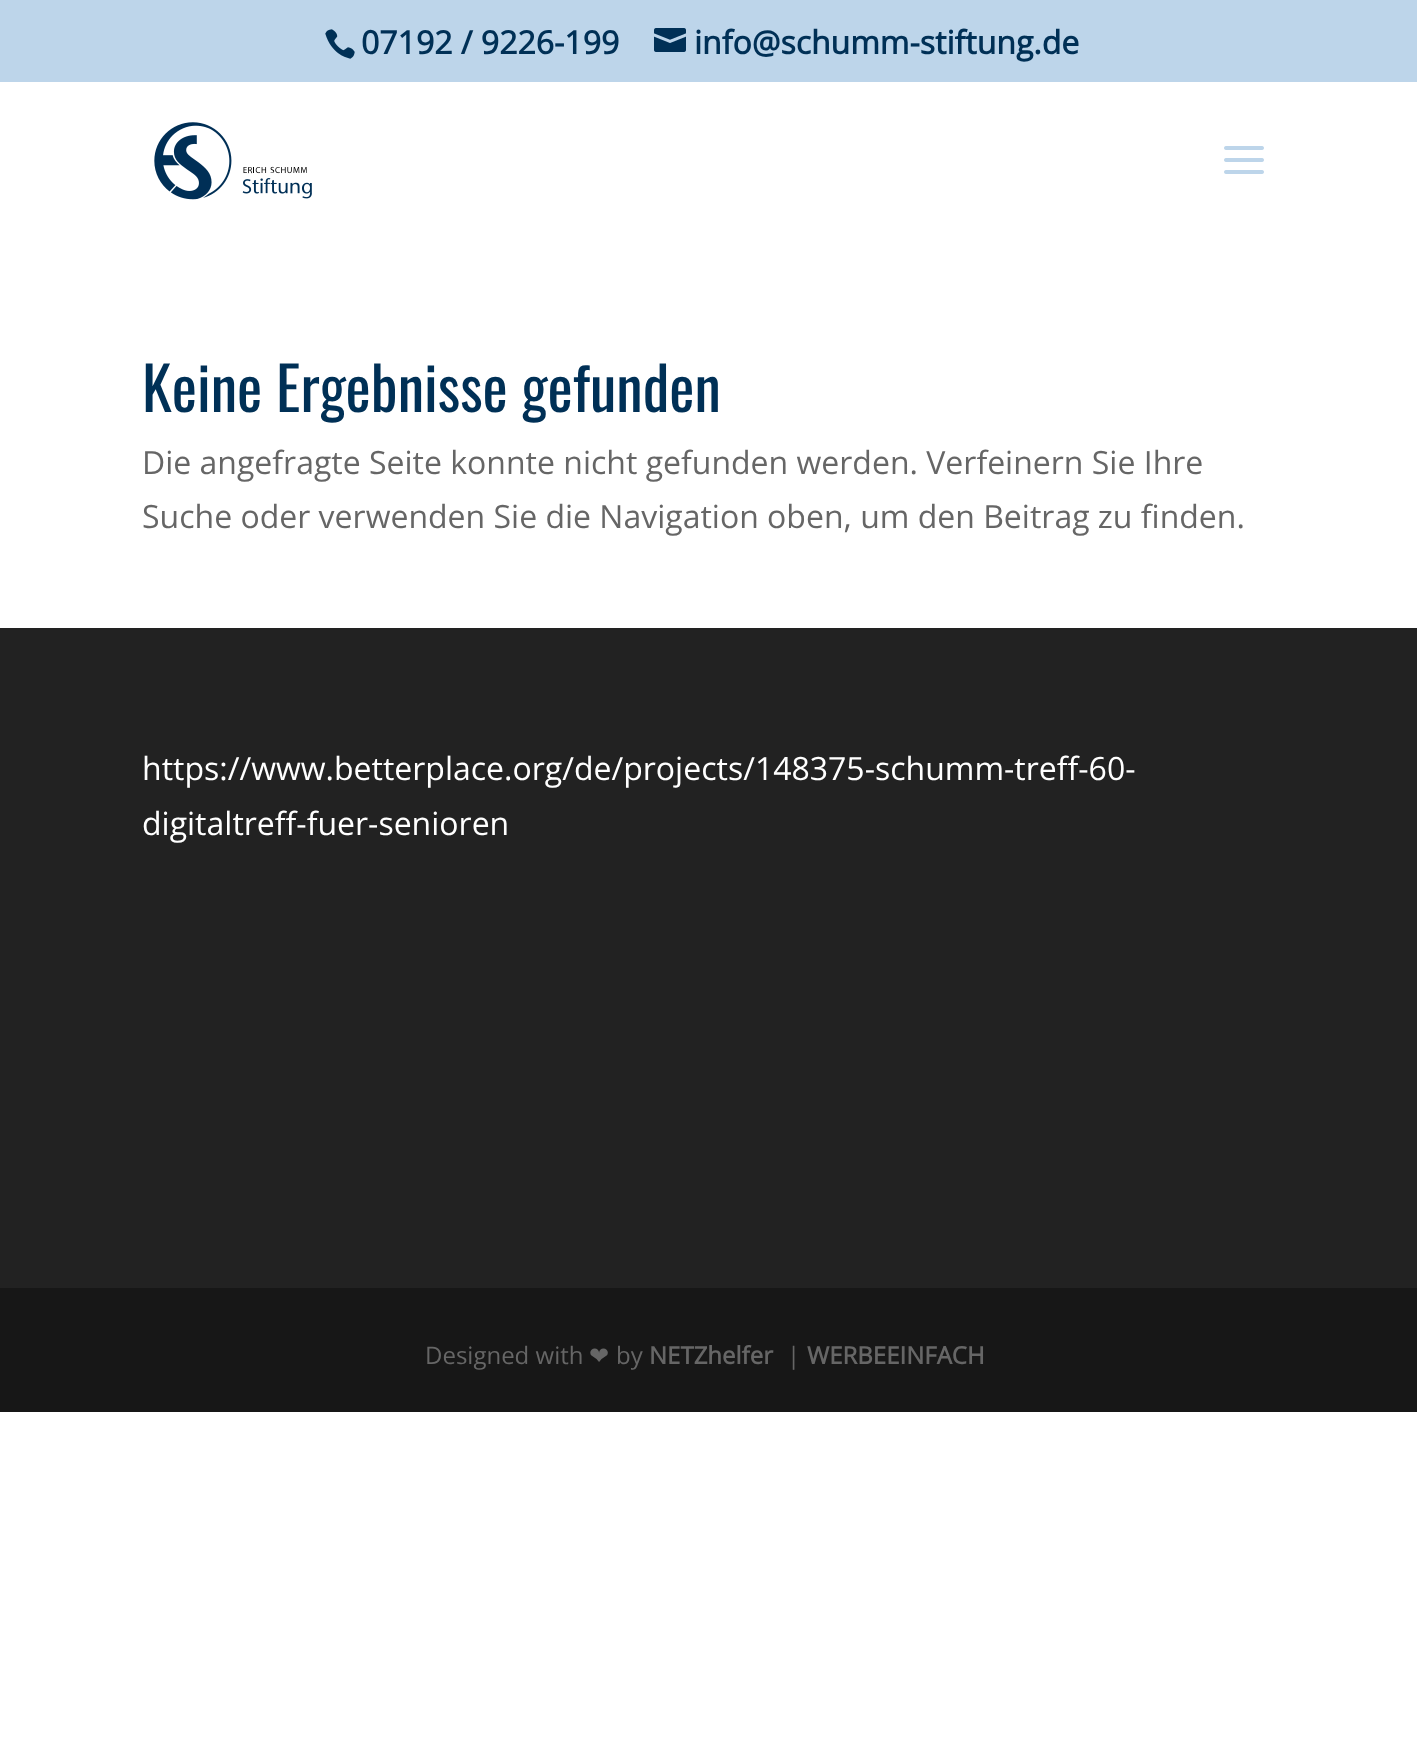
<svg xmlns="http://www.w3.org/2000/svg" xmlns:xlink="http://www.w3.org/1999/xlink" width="1417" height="1737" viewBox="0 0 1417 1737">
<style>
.cls-1{font:bold 32px Open Sans;fill:#003056}
.cls-2{font:60px Oswald;fill:#003056}
.cls-3{font:32px Open Sans;fill:#666666}
.cls-4{font:32px Open Sans;fill:#ffffff}
.cls-5{font:24px Open Sans;fill:#666666}
.cls-6{font:24px DejaVu Sans;fill:#666666}
.cls-7{font:bold 24px Open Sans;fill:#666666}
</style>
<rect width="100%" height="100%" fill="#ffffff"/>
<rect fill="#bdd5ea" x="0" y="0" width="1417" height="82"/>
<image xlink:href="image0.png" x="325" y="29" width="30" height="30"/>
<image xlink:href="image1.png" x="654" y="28" width="32" height="24"/>
<image xlink:href="image2.png" x="154" y="122" width="158" height="78"/>
<image xlink:href="image3.png" x="1224" y="146" width="40" height="28"/>
<rect fill="#222222" x="0" y="628" width="1417" height="660"/>
<rect fill="#171717" x="0" y="1288" width="1417" height="124"/>
<text class="cls-1" x="361" y="54">07192 / 9226-199</text>
<text class="cls-1" x="694" y="54">info@schumm-stiftung.de</text>
<text class="cls-2" x="142" y="412">Keine Ergebnisse gefunden</text>
<text class="cls-3"><tspan x="142" y="474">Die angefragte Seite konnte nicht gefunden werden. Verfeinern Sie Ihre</tspan><tspan x="142" y="528">Suche oder verwenden Sie die Navigation oben, um den Beitrag zu finden.</tspan></text>
<text class="cls-4"><tspan x="142" y="780">https://www.betterplace.org/de/projects/148375-schumm-treff-60-</tspan><tspan x="142" y="835">digitaltreff-fuer-senioren</tspan></text>
<text class="cls-5" x="425" y="1364">Designed with</text>
<text class="cls-6" x="589" y="1364">❤</text>
<text class="cls-5" x="616" y="1364">by</text>
<text class="cls-7" x="649" y="1364">NETZhelfer</text>
<text class="cls-5" x="787" y="1364">|</text>
<text class="cls-7" x="807" y="1364">WERBEEINFACH</text>
</svg>
